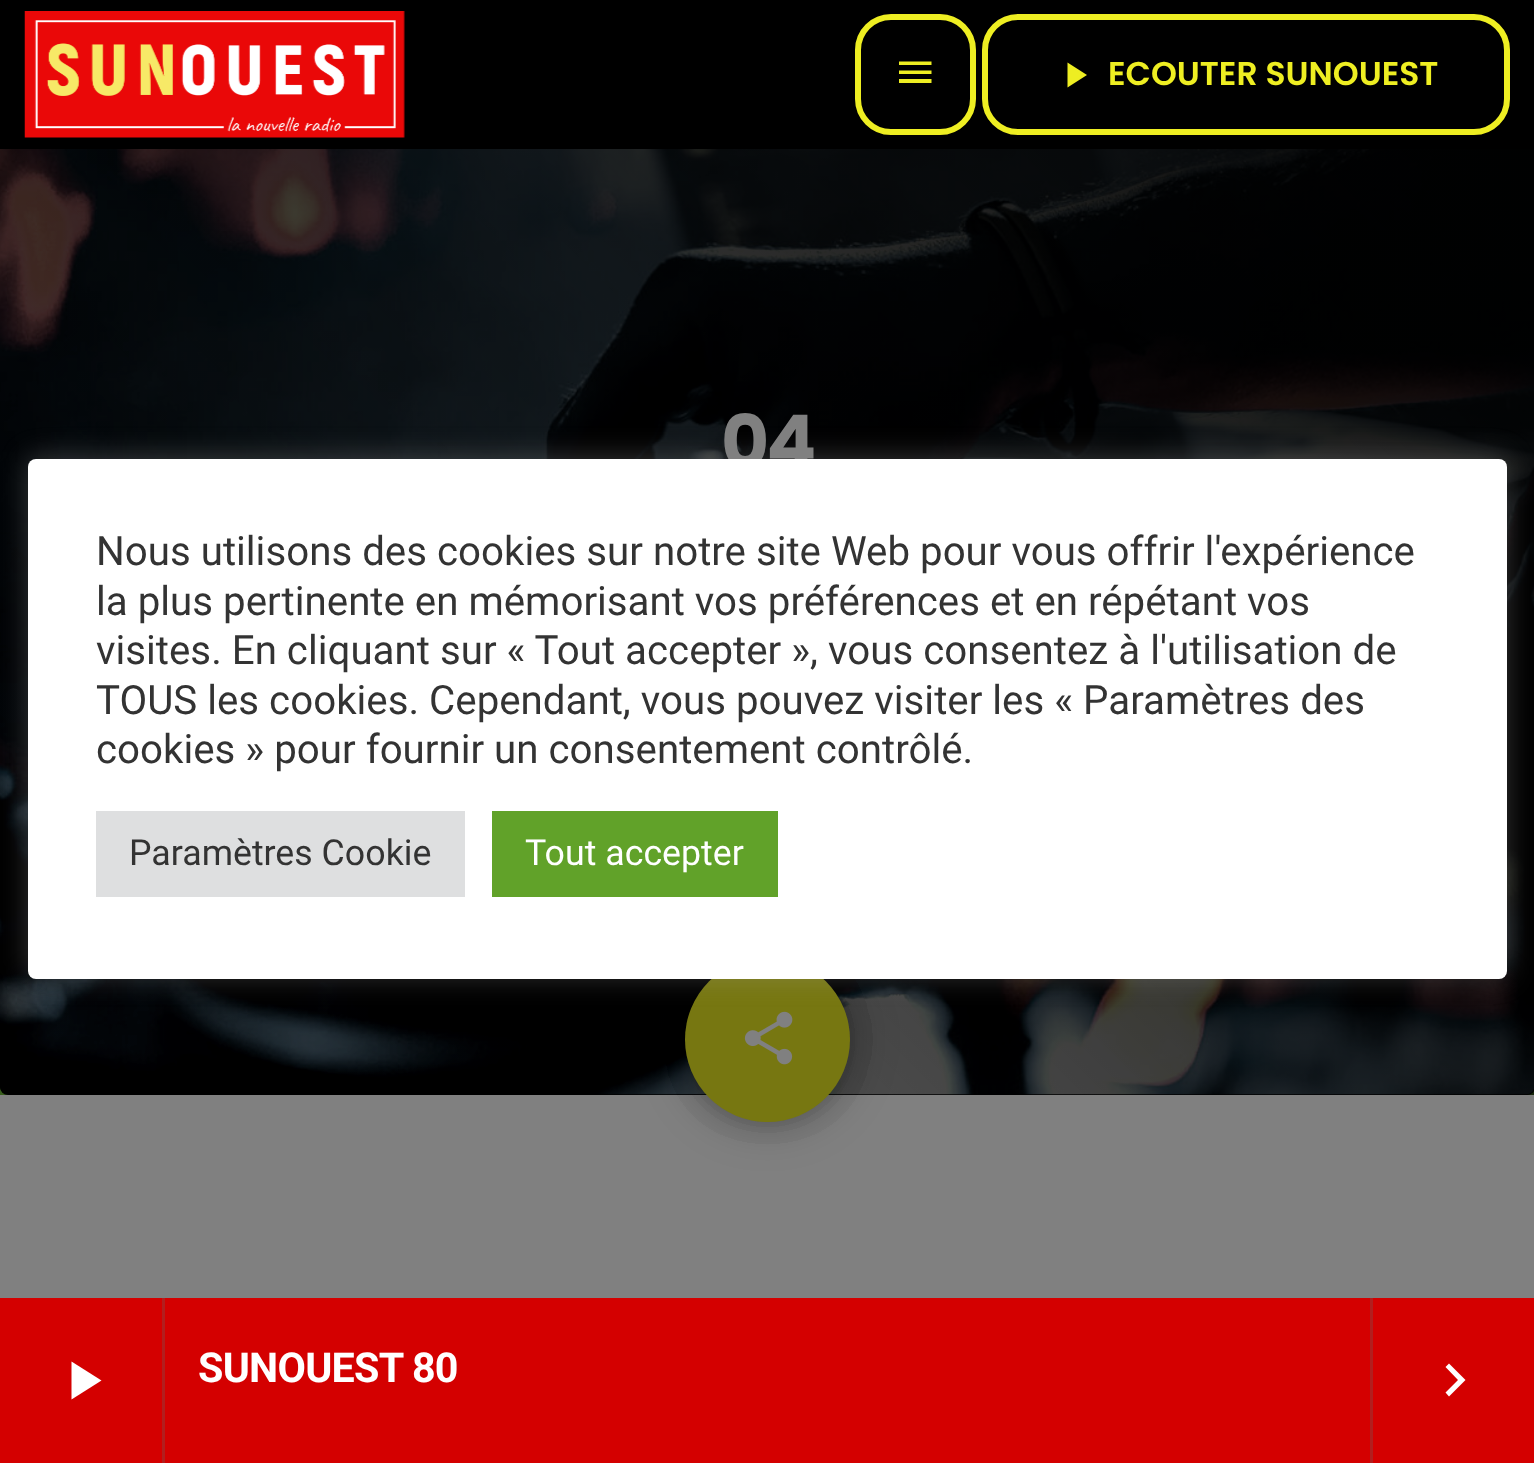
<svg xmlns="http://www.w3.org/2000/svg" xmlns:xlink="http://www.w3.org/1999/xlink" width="1534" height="1463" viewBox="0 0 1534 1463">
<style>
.cls-1{font:600 33px Poppins;fill:#eeee22}
.cls-2{font:bold 74px Poppins;letter-spacing:-3px;fill:#808080}
.cls-3{font:bold 41.25px Roboto;letter-spacing:-0.75px;fill:#ffffff}
.cls-4{font:40.3px Roboto;fill:#333333}
.cls-5{font:35.75px Roboto;fill:#333333}
.cls-6{font:35.75px Roboto;fill:#ffffff}
</style>
<defs>
<linearGradient id="g1" gradientUnits="userSpaceOnUse" x1="110" y1="1205" x2="1425" y2="-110"><stop offset="0" stop-color="#000000" stop-opacity="0.13"/><stop offset="1" stop-color="#000000"/></linearGradient>
</defs>
<rect width="100%" height="100%" fill="#808080"/>
<rect fill="#416c21" x="0" y="1087" width="1534" height="8"/>
<rect fill="#000000" x="0" y="0" width="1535" height="1095" rx="8"/>
<rect fill="#000000" x="0" y="0" width="1534" height="8"/>
<image xlink:href="image0.png" x="24" y="11" width="381" height="127"/>
<rect fill="none" stroke="#eeee22" stroke-width="6" x="858" y="17" width="115" height="115" rx="33"/>
<path fill="#eeee22" d="M899 61.5H931.5V65H899ZM899 74V70.5H931.5V74ZM899 83V79H931.5V83Z"/>
<rect fill="none" stroke="#eeee22" stroke-width="6" x="985" y="17" width="522" height="115" rx="33"/>
<path fill="#eeee22" d="M1067.5 62.5L1087 75L1067.5 87.5Z"/>
<image xlink:href="image1.png" x="0" y="149" width="1534" height="946"/>
<rect fill="url(#g1)" x="0" y="149" width="1534" height="946"/>
<rect fill="#000000" fill-opacity="0.2" filter="blur(20.5px)" x="677" y="949" width="181" height="181" rx="90.5"/>
<rect fill="#000000" fill-opacity="0.2" filter="blur(20.5px)" x="704" y="976" width="127" height="127" rx="63.5"/>
<rect fill="#000000" fill-opacity="0.2" filter="blur(20.5px)" x="704" y="976" width="127" height="127" rx="63.5"/>
<rect fill="#000000" fill-opacity="0.2" filter="blur(20.5px)" x="704" y="976" width="127" height="127" rx="63.5"/>
<rect fill="#000000" fill-opacity="0.2" filter="blur(20.5px)" x="704" y="976" width="127" height="127" rx="63.5"/>
<circle fill="#777711" cx="767.5" cy="1039.5" r="82.5"/>
<image xlink:href="image2.png" x="744" y="1011" width="49" height="54"/>
<rect fill="#d40000" x="0" y="1298" width="1534" height="165"/>
<rect fill="#b21e1e" x="162" y="1298" width="3" height="165"/>
<path fill="#ffffff" d="M71.5 1361.5L101.5 1380.5L71.5 1399.5Z"/>
<rect fill="#b21e1e" x="1370" y="1298" width="3" height="165"/>
<path fill="#ffffff" d="M1445.5 1392.5L1458 1380L1445.5 1367L1449 1363.5L1465.5 1380L1449 1396.5Z"/>
<rect fill="#acabab" fill-opacity="0.3" filter="blur(14px)" x="28" y="457" width="1479" height="519" rx="8"/>
<text class="cls-1" x="1108" y="85">ECOUTER SUNOUEST</text>
<text class="cls-2" x="721" y="468">04</text>
<text class="cls-3" x="198" y="1382">SUNOUEST 80</text>
<rect fill="#ffffff" x="28" y="459" width="1479" height="520" rx="8"/>
<text class="cls-4"><tspan x="96" y="565">Nous utilisons des cookies sur notre site Web pour vous offrir l'expérience</tspan><tspan x="96" y="615">la plus pertinente en mémorisant vos préférences et en répétant vos</tspan><tspan x="96" y="664">visites. En cliquant sur « Tout accepter », vous consentez à l'utilisation de</tspan><tspan x="96" y="714">TOUS les cookies. Cependant, vous pouvez visiter les « Paramètres des</tspan><tspan x="96" y="763">cookies » pour fournir un consentement contrôlé.</tspan></text>
<rect fill="#dedfe0" x="96" y="811" width="369" height="86"/>
<text class="cls-5" x="129" y="865">Paramètres Cookie</text>
<rect fill="#61a229" x="492" y="811" width="286" height="86"/>
<text class="cls-6" x="525" y="865">Tout accepter</text>
</svg>
